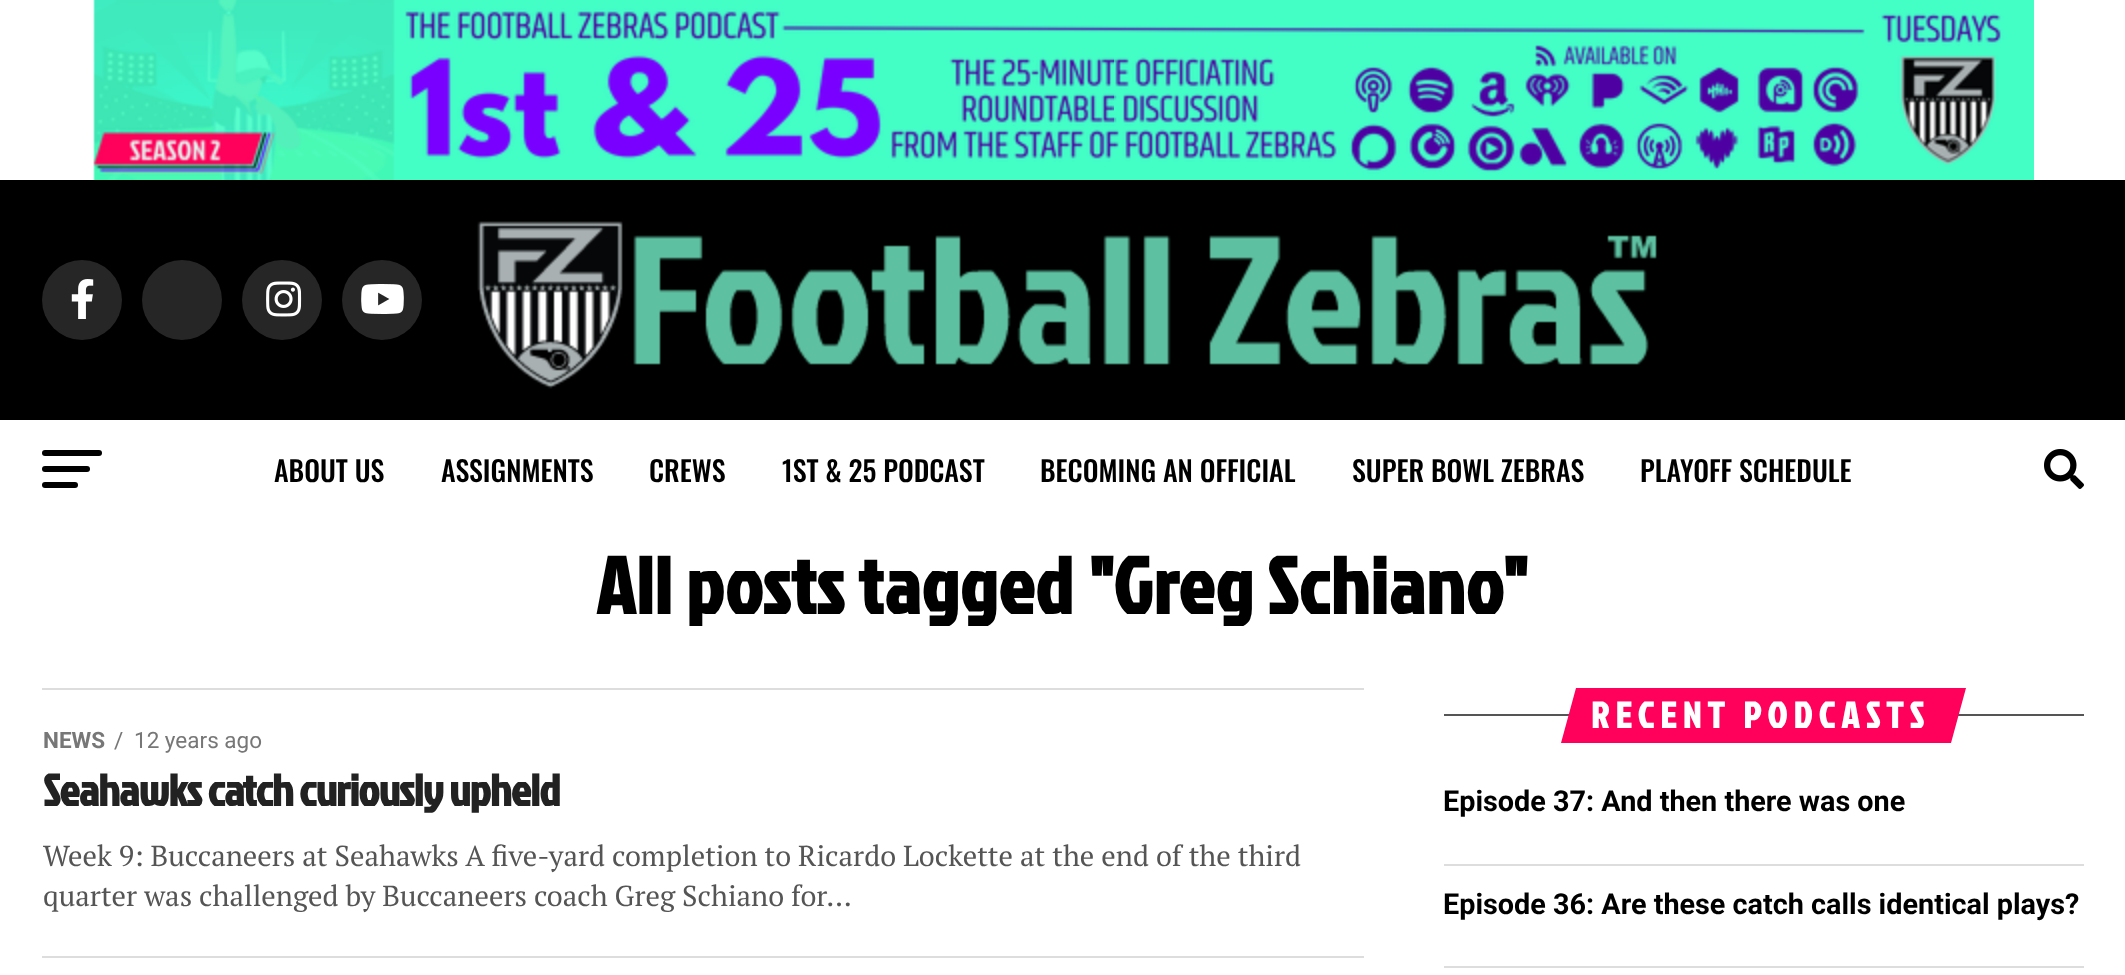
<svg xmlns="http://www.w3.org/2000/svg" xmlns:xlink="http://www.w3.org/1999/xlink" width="2125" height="975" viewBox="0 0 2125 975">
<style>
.cls-1{font:500 28px Oswald;fill:#000000}
.cls-2{font:bold 80px Jockey One;letter-spacing:0.8px;fill:#000000}
.cls-3{font:bold 22.5px Roboto;fill:#777777}
.cls-4{font:22.5px Roboto;fill:#777777}
.cls-5{font:bold 44.75px Jockey One;letter-spacing:-0.9px;fill:#222222}
.cls-6{font:28.8px PT Serif;fill:#555555}
.cls-7{font:bold 36.5px Jockey One;letter-spacing:6.5px;fill:#ffffff}
.cls-8{font:bold 28.8px Roboto;fill:#000000}
</style>
<rect width="100%" height="100%" fill="#ffffff"/>
<image xlink:href="image0.png" x="93" y="0" width="1941" height="180"/>
<rect fill="#000000" x="0" y="180" width="2125" height="240"/>
<circle fill="#262626" cx="82" cy="300" r="40"/>
<image xlink:href="image1.png" x="71" y="279" width="23" height="40"/>
<circle fill="#262626" cx="182" cy="300" r="40"/>
<circle fill="#262626" cx="282" cy="300" r="40"/>
<image xlink:href="image2.png" x="266" y="281" width="36" height="36"/>
<circle fill="#262626" cx="382" cy="300" r="40"/>
<image xlink:href="image3.png" x="361" y="284" width="43" height="30"/>
<image xlink:href="image4.png" x="477" y="221" width="1180" height="168"/>
<rect fill="#000000" x="42" y="450" width="60" height="6" rx="3"/>
<rect fill="#000000" x="42" y="466" width="48" height="6" rx="3"/>
<rect fill="#000000" x="42" y="482" width="36" height="6" rx="3"/>
<image xlink:href="image5.png" x="2044" y="449" width="40" height="40"/>
<rect fill="#dddddd" x="42" y="688" width="1322" height="2"/>
<rect fill="#dddddd" x="42" y="956" width="1322" height="2"/>
<rect fill="#555555" x="1444" y="714" width="640" height="2"/>
<path fill="#ff005b" d="M1576 688H1966L1951 743H1561Z"/>
<rect fill="#dddddd" x="1444" y="864" width="640" height="2"/>
<rect fill="#dddddd" x="1444" y="966" width="640" height="2"/>
<text class="cls-1" x="274" y="482">ABOUT US</text>
<text class="cls-1" x="441" y="482">ASSIGNMENTS</text>
<text class="cls-1" x="649" y="482">CREWS</text>
<text class="cls-1" x="782" y="482">1ST &amp; 25 PODCAST</text>
<text class="cls-1" x="1040" y="482">BECOMING AN OFFICIAL</text>
<text class="cls-1" x="1352" y="482">SUPER BOWL ZEBRAS</text>
<text class="cls-1" x="1640" y="482">PLAYOFF SCHEDULE</text>
<text class="cls-2" x="596" y="614">All posts tagged "Greg Schiano"</text>
<text class="cls-3" x="43" y="748">NEWS</text>
<text class="cls-4" x="114" y="748">/</text>
<text class="cls-4" x="134" y="748">12 years ago</text>
<text class="cls-5" x="43" y="806">Seahawks catch curiously upheld</text>
<text class="cls-6"><tspan x="43" y="866">Week 9: Buccaneers at Seahawks A five-yard completion to Ricardo Lockette at the end of the third</tspan><tspan x="43" y="906">quarter was challenged by Buccaneers coach Greg Schiano for...</tspan></text>
<text class="cls-7" x="1591" y="728">RECENT PODCASTS</text>
<text class="cls-8" x="1443" y="811">Episode 37: And then there was one</text>
<text class="cls-8" x="1443" y="914">Episode 36: Are these catch calls identical plays?</text>
</svg>
